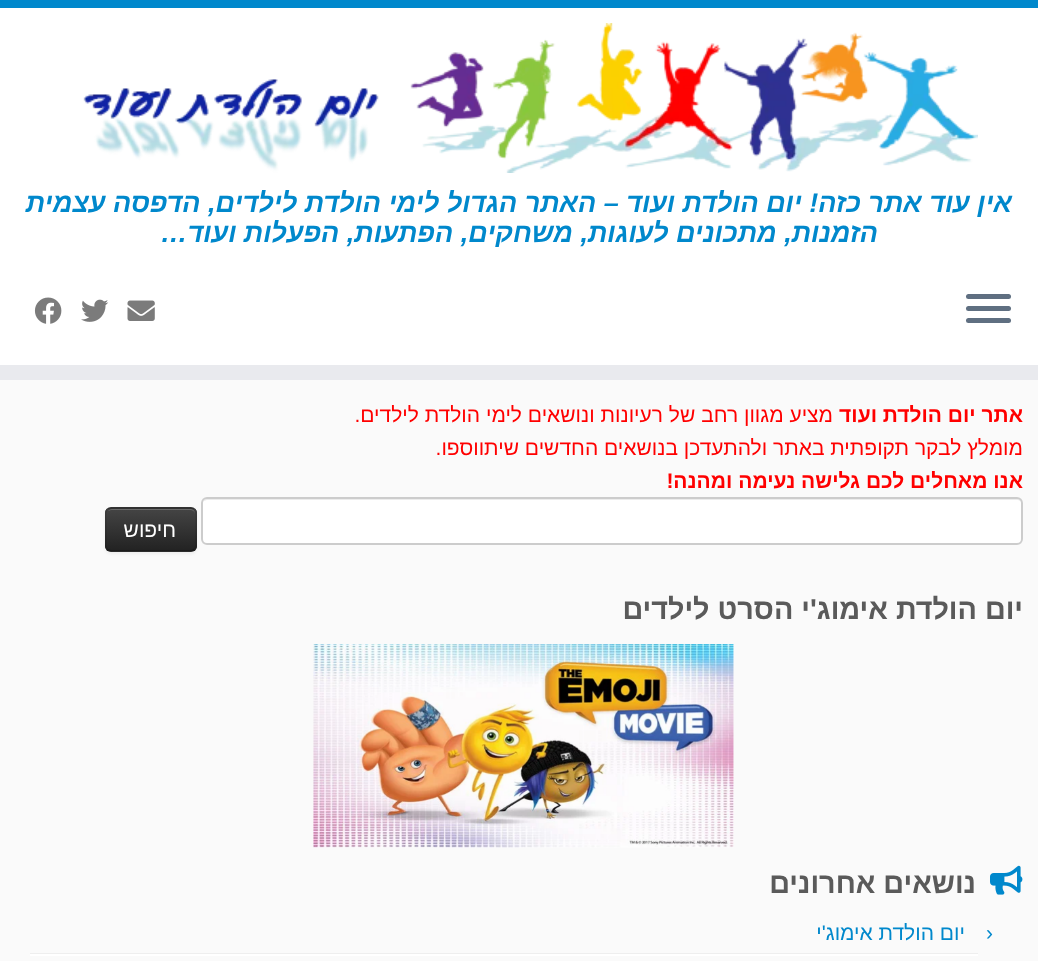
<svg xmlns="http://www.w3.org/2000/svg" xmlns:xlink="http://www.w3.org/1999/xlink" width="1038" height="961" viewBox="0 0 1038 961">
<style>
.cls-1{font:italic bold 27px Liberation Sans;direction:rtl;fill:#0088cc}
.cls-2{font:bold 21px Liberation Sans;direction:rtl;fill:#ff0000}
.cls-3{font:21px Liberation Sans;direction:rtl;fill:#ff0000}
.cls-4{font:21px Liberation Sans;direction:rtl;fill:#ffffff}
.cls-5{font:bold 28.75px Liberation Sans;direction:rtl;fill:#5a5a5a}
.cls-6{font:21px Liberation Sans;fill:#0088cc}
.cls-7{font:21px Liberation Sans;direction:rtl;fill:#0088cc}
</style>
<defs>
<clipPath id="clip1"><rect x="105" y="507" width="92" height="45" rx="6"/></clipPath>
<linearGradient id="g1" gradientUnits="userSpaceOnUse" x1="151" y1="509" x2="151" y2="551"><stop offset="0" stop-color="#444444"/><stop offset="1" stop-color="#222222"/></linearGradient>
</defs>
<rect width="100%" height="100%" fill="#fafafa"/>
<rect fill="#ffffff" x="0" y="8" width="1038" height="357"/>
<rect fill="#0088cc" x="0" y="0" width="1038" height="8"/>
<rect fill="#e9eaee" x="0" y="365" width="1038" height="15"/>
<image xlink:href="image0.png" x="83" y="23" width="895" height="150"/>
<rect fill="#5f6f81" x="966" y="294" width="45" height="5" rx="2.5"/>
<rect fill="#5f6f81" x="966" y="306" width="45" height="5" rx="2.5"/>
<rect fill="#5f6f81" x="966" y="318" width="45" height="5" rx="2.5"/>
<image xlink:href="image1.png" x="127" y="300" width="28" height="21"/>
<image xlink:href="image2.png" x="81" y="299" width="28" height="23"/>
<image xlink:href="image3.png" x="34" y="297" width="28" height="27"/>
<rect fill="#ffffff" x="201" y="497" width="822" height="48" rx="6"/>
<path fill="#ececec" d="M207 500H1017C1019 500 1022 502 1022 504V503C1022 500 1020 498 1017 498H208C206 498 204 500 203 502C204 501 206 500 207 500Z"/>
<rect fill="none" stroke="#cccccc" stroke-width="2" x="202" y="498" width="820" height="46" rx="5"/>
<rect fill="#000000" fill-opacity="0.05" filter="blur(1.5px)" x="105" y="509" width="92" height="45" rx="6"/>
<rect fill="#363636" x="105" y="507" width="92" height="45" rx="6"/>
<g clip-path="url(#clip1)">
<rect fill="url(#g1)" x="105" y="509" width="92" height="42"/>
</g>
<path fill="#696969" d="M111 510H190C193 510 195 512 195 514C195 511 193 509 190 509H112C110 509 109 510 108 511Z"/>
<path fill="none" stroke="#000000" stroke-opacity="0.25" stroke-width="1.5" d="M194 549.5L191 551H110.5L107.5 549.5"/>
<path fill="none" stroke="#000000" stroke-opacity="0.1" stroke-width="1.5" d="M107.5 549.5C105 547.5 106 543.5 106 540.5V529.5C106 506.5 101.5 508 124 508H177C200 508 196 506.5 196 529.5V540.5C196 543.5 196.5 547.5 194 549.5"/>
<image xlink:href="image4.png" x="313" y="644" width="421" height="204"/>
<image xlink:href="image5.png" x="990" y="865" width="33" height="30"/>
<rect fill="#eeeeee" x="30" y="953" width="948" height="1"/>
<rect fill="#ffffff" x="30" y="954" width="948" height="2"/>
<text class="cls-1" x="1012" y="212">אין עוד אתר כזה! יום הולדת ועוד – האתר הגדול לימי הולדת לילדים, הדפסה עצמית</text>
<text class="cls-1" x="878" y="242">הזמנות, מתכונים לעוגות, משחקים, הפתעות, הפעלות ועוד…</text>
<text class="cls-2" x="1023" y="422">אתר יום הולדת ועוד</text>
<text class="cls-3" x="833" y="422">מציע מגוון רחב של רעיונות ונושאים לימי הולדת לילדים.</text>
<text class="cls-3" x="1023" y="455">מומלץ לבקר תקופתית באתר ולהתעדכן בנושאים החדשים שיתווספו.</text>
<text class="cls-2" x="1023" y="488">אנו מאחלים לכם גלישה נעימה ומהנה!</text>
<text class="cls-4" x="176" y="537">חיפוש</text>
<text class="cls-5" x="1023" y="619">יום הולדת אימוג'י הסרט לילדים</text>
<text class="cls-5" x="976" y="893">נושאים אחרונים</text>
<text class="cls-6" x="986" y="940">›</text>
<text class="cls-7" x="965" y="940">יום הולדת אימוג'י</text>
</svg>
